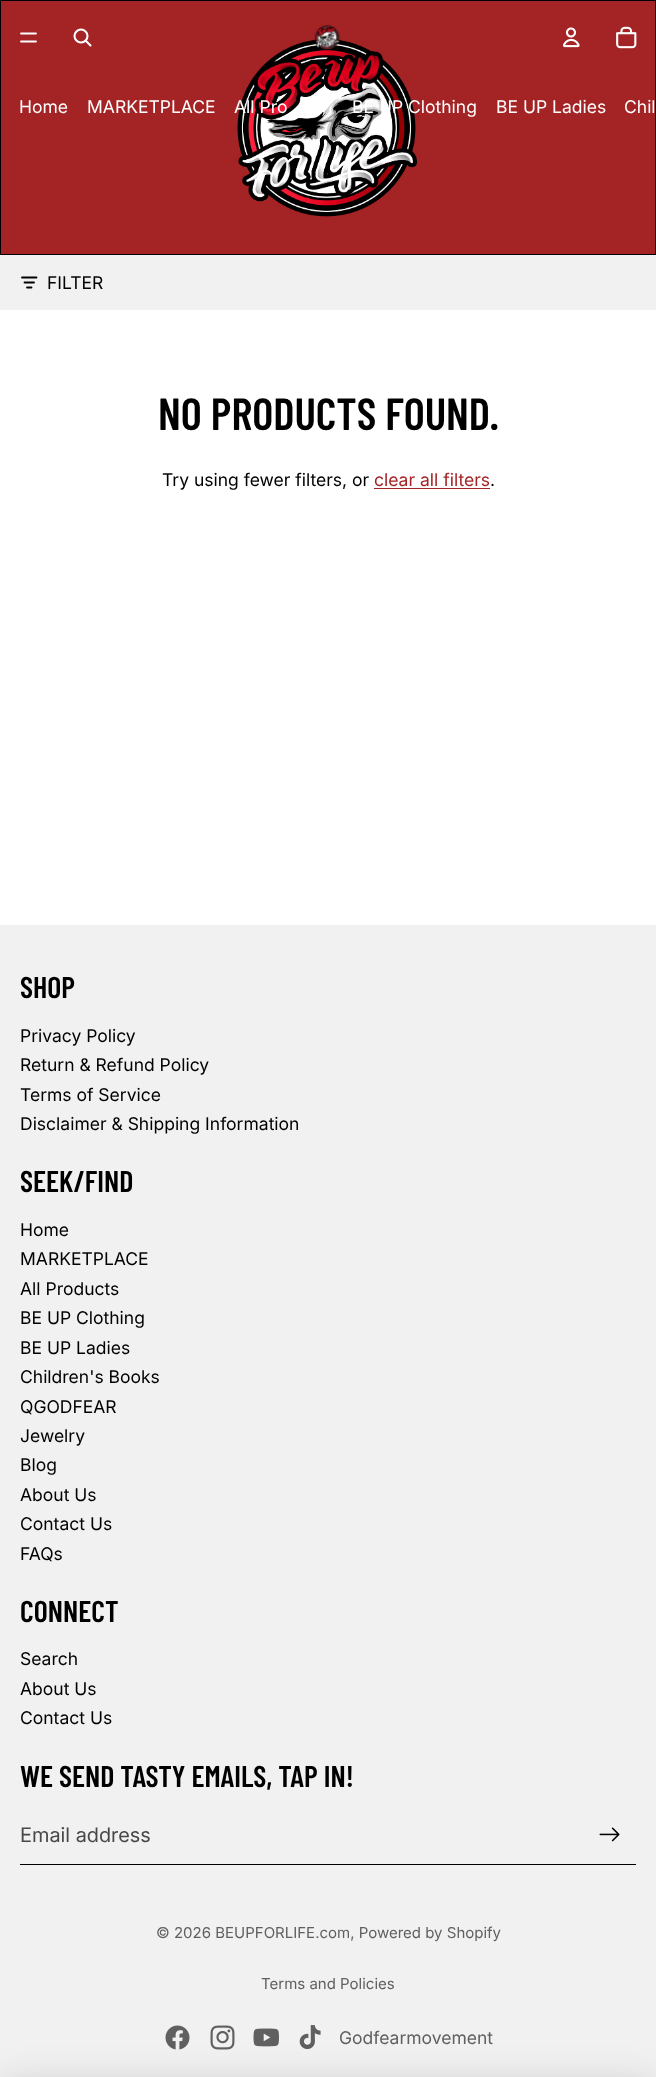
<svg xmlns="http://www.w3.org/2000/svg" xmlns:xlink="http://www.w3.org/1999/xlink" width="656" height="2077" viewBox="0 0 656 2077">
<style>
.cls-1{font:17.5px Inter;fill:#ffffff}
.cls-2{font:17.5px Inter;fill:#000000}
.cls-3{font:600 45px Barlow Condensed;fill:#000000}
.cls-4{font:17.5px Inter;fill:#a42325}
.cls-5{font:600 30px Barlow Condensed;fill:#000000}
.cls-6{font:20px 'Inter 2';fill:#484848}
.cls-7{font:15px Inter;fill:#606060}
.cls-8{font:17.5px Inter;fill:#606060}
</style>
<rect width="100%" height="100%" fill="#ffffff"/>
<rect fill="#a42325" x="1" y="1" width="654" height="253"/>
<image xlink:href="image3.png" x="237" y="39" width="181" height="178"/>
<rect fill="none" stroke="#000000" x="0.5" y="0.5" width="655" height="254"/>
<path fill="none" stroke="#ffffff" stroke-width="1.8" stroke-linecap="round" d="M21 33.5H36M21 41.5H36"/>
<circle fill="none" stroke="#ffffff" stroke-width="2.1" cx="81" cy="36" r="6.5"/>
<path fill="none" stroke="#ffffff" stroke-width="2.1" stroke-linecap="round" stroke-linejoin="round" d="M86 41L90.5 45.5"/>
<image xlink:href="image0.png" x="314" y="24" width="27" height="27"/>
<image xlink:href="image1.png" x="562" y="27" width="18" height="21"/>
<image xlink:href="image2.png" x="616" y="26" width="21" height="23"/>
<rect fill="#f1f1f1" x="0" y="255" width="656" height="55"/>
<path fill="none" stroke="#000000" stroke-width="1.8" stroke-linecap="round" d="M36.5 277.5H22M34 282.5H24.5M27 287.5H31.5"/>
<rect fill="#a42325" x="374" y="488" width="116" height="1"/>
<rect fill="#f1f1f1" x="0" y="925" width="656" height="1152"/>
<rect fill="#000000" x="20" y="1864" width="616" height="1"/>
<image xlink:href="image4.png" x="599" y="1827" width="21" height="15"/>
<image xlink:href="image5.png" x="165" y="2025" width="25" height="25"/>
<image xlink:href="image6.png" x="210" y="2025" width="25" height="25"/>
<image xlink:href="image7.png" x="253" y="2028" width="26" height="19"/>
<image xlink:href="image8.png" x="299" y="2025" width="22" height="24"/>
<rect fill="#000000" fill-opacity="0.15" filter="blur(19px)" x="0" y="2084" width="656" height="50"/>
<text class="cls-1" x="19" y="113">Home</text>
<text class="cls-1" x="87" y="113">MARKETPLACE</text>
<text class="cls-1" x="234" y="113">All Pro</text>
<text class="cls-1" x="352" y="113">BE UP Clothing</text>
<text class="cls-1" x="496" y="113">BE UP Ladies</text>
<text class="cls-1" x="624" y="113">Chil</text>
<text class="cls-2" x="47" y="289">FILTER</text>
<text class="cls-3" x="158" y="430">NO PRODUCTS FOUND.</text>
<text class="cls-2" x="162" y="486">Try using fewer filters, or</text>
<text class="cls-4" x="374" y="486">clear all filters</text>
<text class="cls-2" x="490" y="486">.</text>
<text class="cls-5" x="20" y="998">SHOP</text>
<text class="cls-2"><tspan x="20" y="1042">Privacy Policy</tspan><tspan x="20" y="1071">Return &amp; Refund Policy</tspan><tspan x="20" y="1101">Terms of Service</tspan><tspan x="20" y="1130">Disclaimer &amp; Shipping Information</tspan></text>
<text class="cls-5" x="20" y="1192">SEEK/FIND</text>
<text class="cls-2"><tspan x="20" y="1236">Home</tspan><tspan x="20" y="1265">MARKETPLACE</tspan><tspan x="20" y="1295">All Products</tspan><tspan x="20" y="1324">BE UP Clothing</tspan><tspan x="20" y="1354">BE UP Ladies</tspan><tspan x="20" y="1383">Children's Books</tspan><tspan x="20" y="1413">QGODFEAR</tspan><tspan x="20" y="1442">Jewelry</tspan><tspan x="20" y="1471">Blog</tspan><tspan x="20" y="1501">About Us</tspan><tspan x="20" y="1530">Contact Us</tspan><tspan x="20" y="1560">FAQs</tspan></text>
<text class="cls-5" x="20" y="1622">CONNECT</text>
<text class="cls-2"><tspan x="20" y="1665">Search</tspan><tspan x="20" y="1695">About Us</tspan><tspan x="20" y="1724">Contact Us</tspan></text>
<text class="cls-5" x="20" y="1787">WE SEND TASTY EMAILS, TAP IN!</text>
<text class="cls-6" x="20" y="1842">Email address</text>
<text class="cls-7" x="156" y="1938">© 2026 BEUPFORLIFE.com, Powered by Shopify</text>
<text class="cls-7" x="261" y="1989">Terms and Policies</text>
<text class="cls-8" x="339" y="2044">Godfearmovement</text>
</svg>
